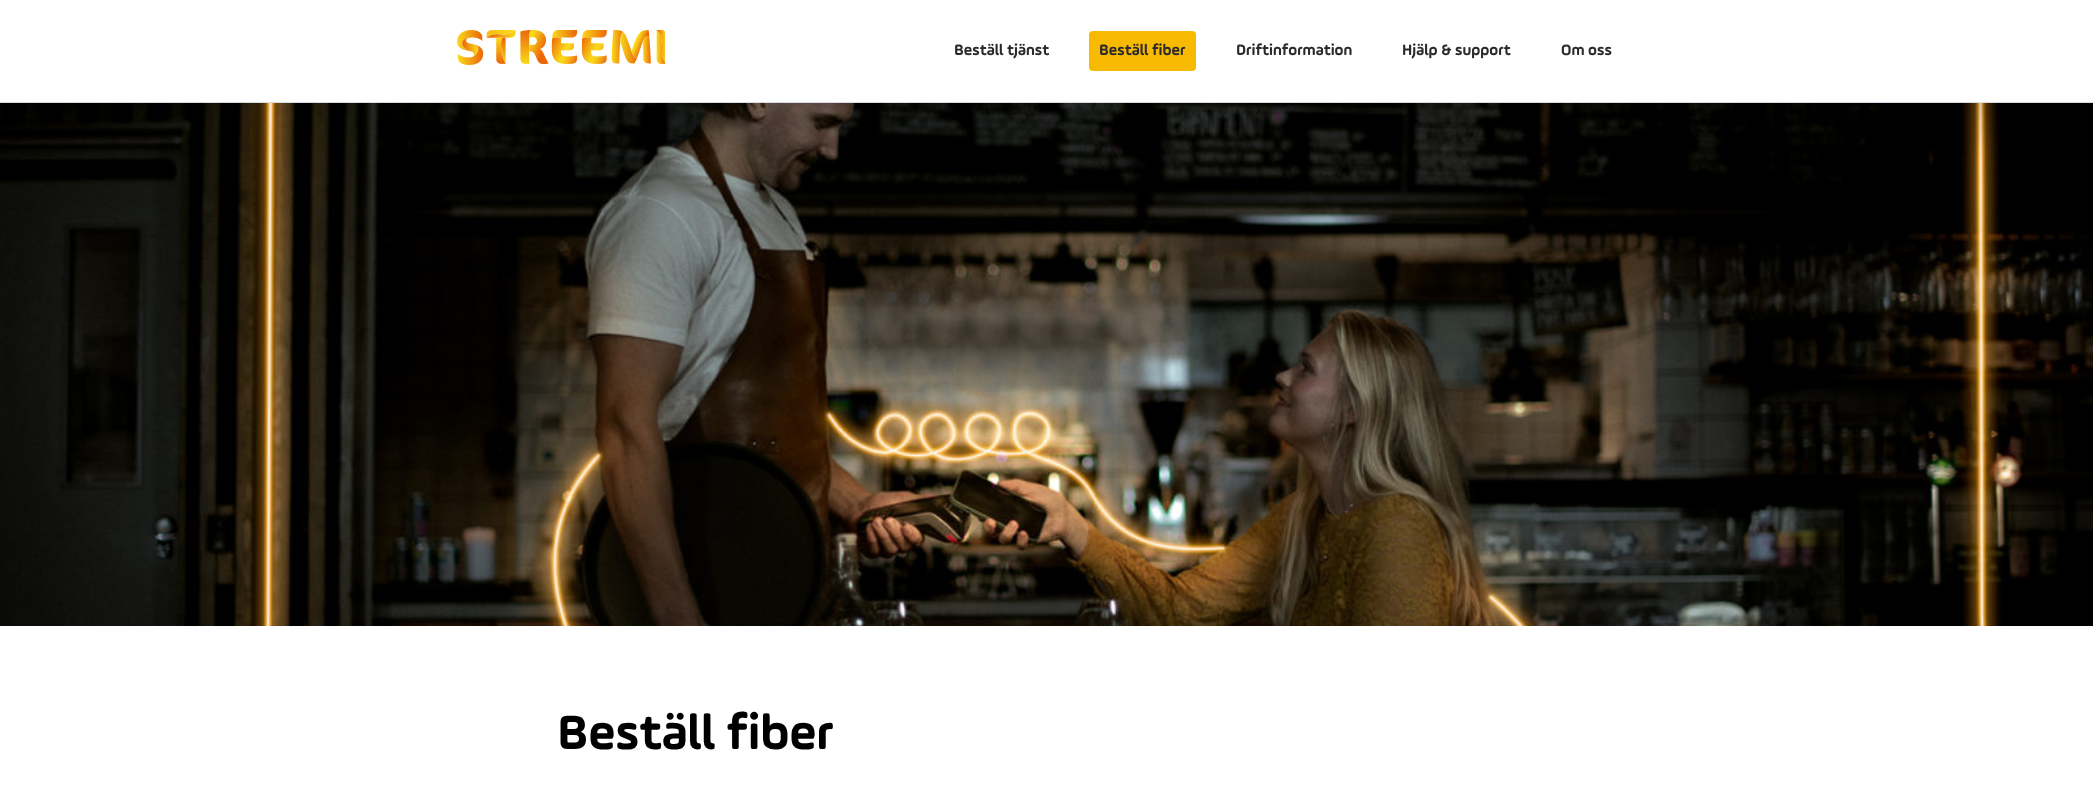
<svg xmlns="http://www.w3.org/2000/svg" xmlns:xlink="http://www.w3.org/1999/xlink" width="2093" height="805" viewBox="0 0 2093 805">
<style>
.cls-1{font:bold 16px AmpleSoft;fill:#2b2b2a}
.cls-2{font:bold 51.25px AmpleSoft;fill:#000000}
</style>
<rect width="100%" height="100%" fill="#ffffff"/>
<rect fill="#d7dbe3" x="0" y="102" width="2093" height="1"/>
<image xlink:href="image0.png" x="457" y="30" width="208" height="35"/>
<rect fill="#f8ba00" x="1089" y="31" width="107" height="40" rx="4"/>
<image xlink:href="image1.png" x="0" y="103" width="2093" height="523"/>
<text class="cls-1" x="954" y="55">Beställ tjänst</text>
<text class="cls-1" x="1099" y="55">Beställ fiber</text>
<text class="cls-1" x="1236" y="55">Driftinformation</text>
<text class="cls-1" x="1402" y="55">Hjälp &amp; support</text>
<text class="cls-1" x="1561" y="55">Om oss</text>
<text class="cls-2" x="557" y="749">Beställ fiber</text>
</svg>
